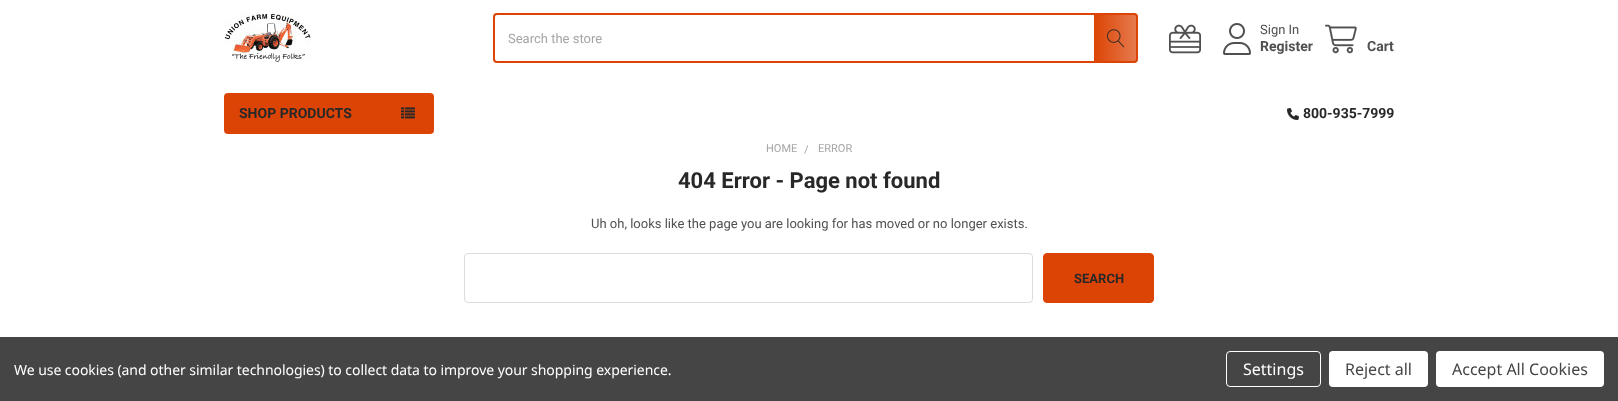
<svg xmlns="http://www.w3.org/2000/svg" xmlns:xlink="http://www.w3.org/1999/xlink" width="1618" height="401" viewBox="0 0 1618 401">
<style>
.cls-1{font:13px Roboto;fill:#a5a5a5}
.cls-2{font:13px Roboto;fill:#505050}
.cls-3{font:bold 14px Roboto;fill:#505050}
.cls-4{font:bold 14px Roboto;fill:#282828}
.cls-5{font:11px Roboto;fill:#a5a5a5}
.cls-6{font:bold 22px Roboto;fill:#282828}
.cls-7{font:bold 13px Roboto;fill:#282828}
.cls-8{font:14px Noto Sans;letter-spacing:-0.05px;fill:#ffffff}
.cls-9{font:16px Noto Sans;fill:#ffffff}
.cls-10{font:16px Noto Sans;fill:#454545}
</style>
<defs>
<linearGradient id="g1" gradientUnits="userSpaceOnUse" x1="1094" y1="38" x2="1138" y2="38"><stop offset="0" stop-color="#dc4405"/><stop offset="1" stop-color="#dc4405" stop-opacity="0.7"/></linearGradient>
</defs>
<rect width="100%" height="100%" fill="#ffffff"/>
<image xlink:href="image0.png" x="224" y="13" width="87" height="50"/>
<rect fill="none" stroke="#dc4405" stroke-width="2" x="494" y="14" width="643" height="48" rx="3"/>
<path fill="url(#g1)" d="M1094 13H1134C1136 13 1138 15 1138 17V59C1138 61 1136 63 1134 63H1094Z"/>
<image xlink:href="image1.png" x="1107" y="29" width="17" height="19"/>
<image xlink:href="image2.png" x="1169" y="24" width="32" height="30"/>
<image xlink:href="image3.png" x="1223" y="23" width="28" height="32"/>
<image xlink:href="image4.png" x="1325" y="24" width="32" height="30"/>
<rect fill="#dc4405" x="224" y="93" width="210" height="41" rx="4"/>
<image xlink:href="image5.png" x="401" y="107" width="14" height="12"/>
<image xlink:href="image6.png" x="1287" y="108" width="12" height="12"/>
<rect fill="none" stroke="#dcdcdc" x="464.5" y="253.5" width="568" height="49" rx="3.5"/>
<rect fill="#dc4405" stroke="#dc4405" x="1043.5" y="253.5" width="110" height="49" rx="3.5"/>
<rect fill="#454545" x="0" y="337" width="1618" height="64"/>
<rect fill="none" stroke="#ffffff" x="1226.5" y="351.5" width="94" height="35" rx="3.5"/>
<rect fill="#ffffff" x="1329" y="351" width="99" height="36" rx="4"/>
<rect fill="#ffffff" x="1436" y="351" width="168" height="36" rx="4"/>
<text class="cls-1" x="508" y="43">Search the store</text>
<text class="cls-2" x="1260" y="34">Sign In</text>
<text class="cls-3" x="1260" y="51">Register</text>
<text class="cls-3" x="1367" y="51">Cart</text>
<text class="cls-4" x="239" y="118">SHOP PRODUCTS</text>
<text class="cls-4" x="1303" y="118">800-935-7999</text>
<text class="cls-5" x="766" y="152">HOME</text>
<text class="cls-5" x="804" y="153">/</text>
<text class="cls-5" x="818" y="152">ERROR</text>
<text class="cls-6" x="678" y="188">404 Error - Page not found</text>
<text class="cls-2" x="591" y="228">Uh oh, looks like the page you are looking for has moved or no longer exists.</text>
<text class="cls-7" x="1074" y="283">SEARCH</text>
<text class="cls-8" x="14" y="375">We use cookies (and other similar technologies) to collect data to improve your shopping experience.</text>
<text class="cls-9" x="1243" y="375">Settings</text>
<text class="cls-10" x="1345" y="375">Reject all</text>
<text class="cls-10" x="1452" y="375">Accept All Cookies</text>
</svg>
